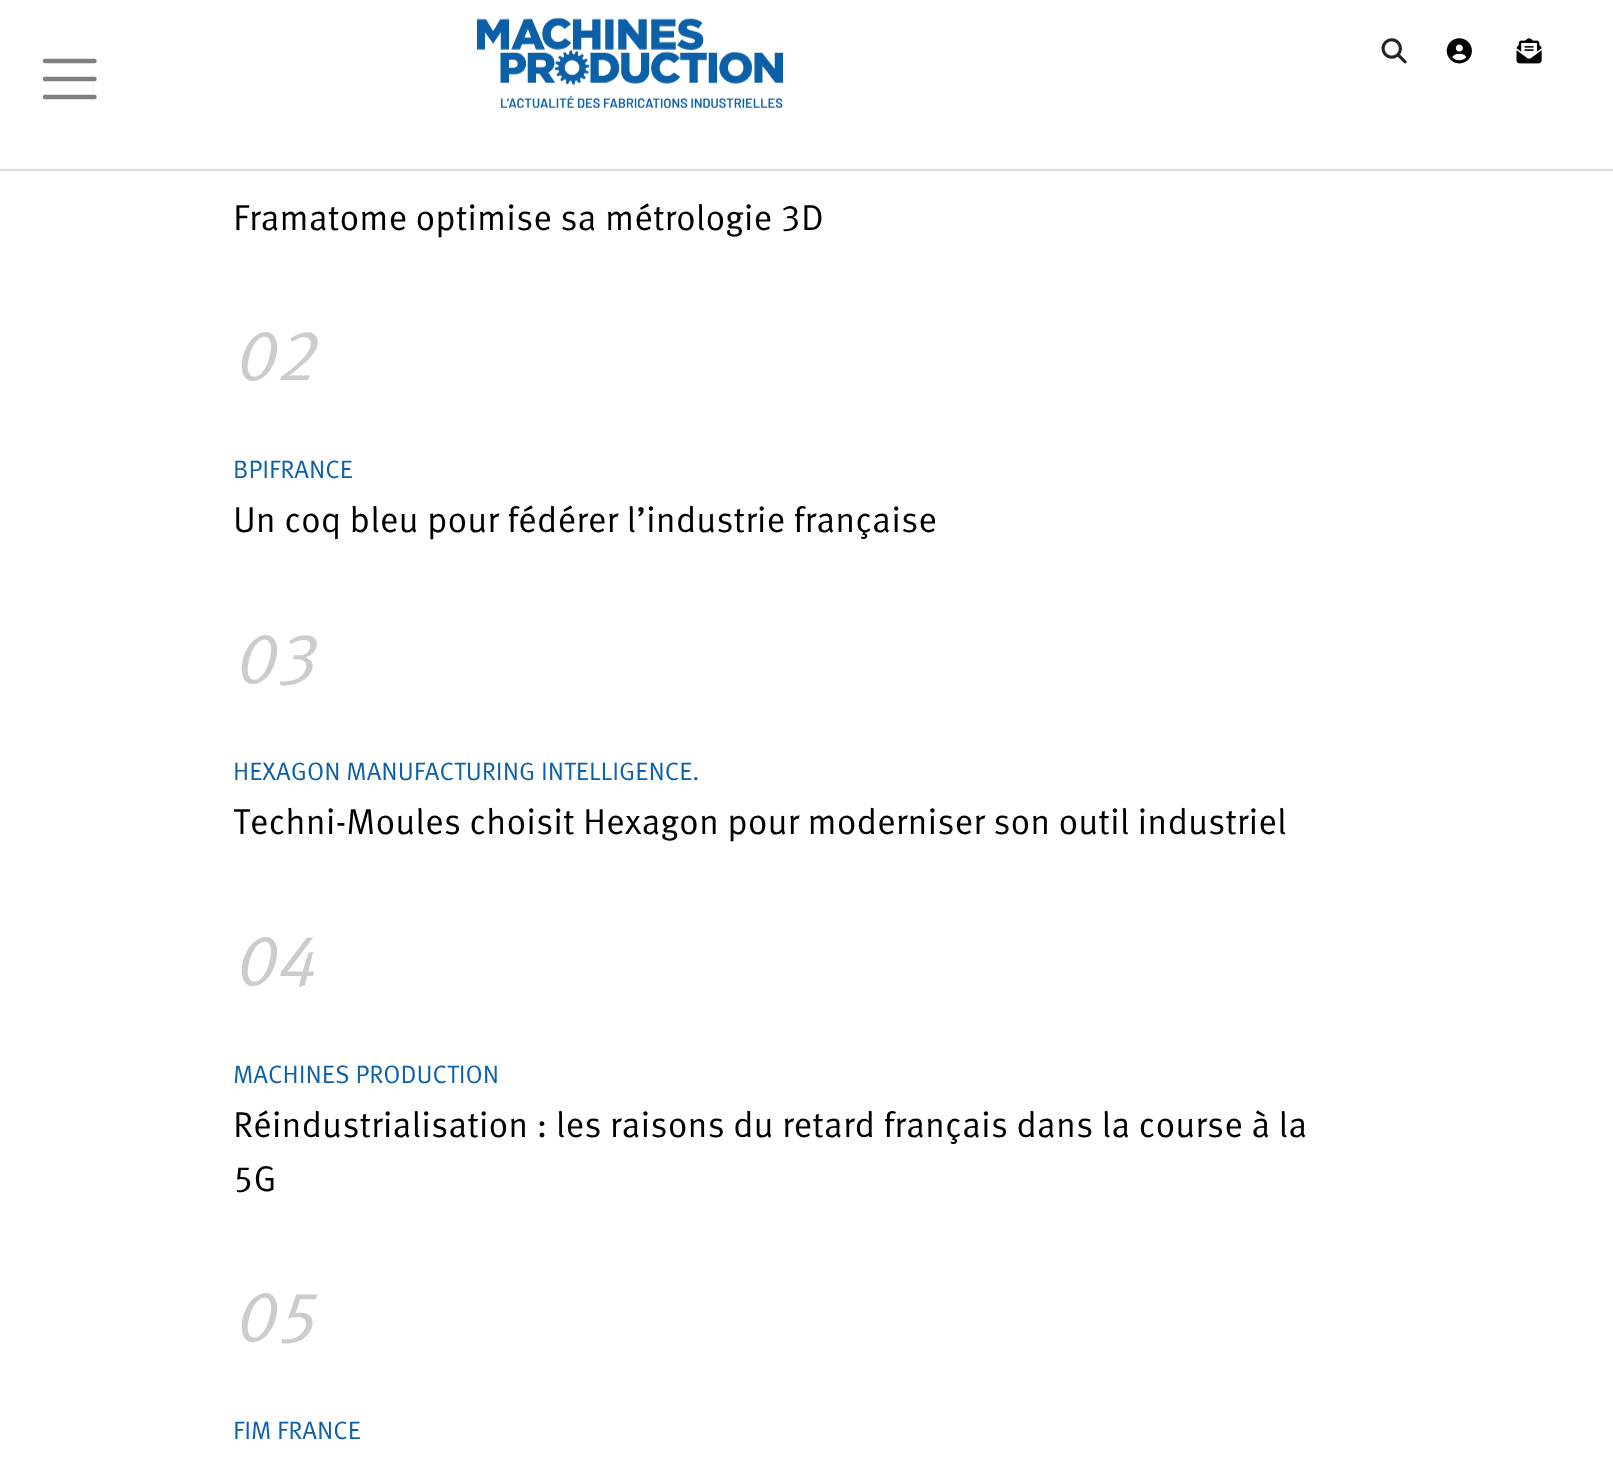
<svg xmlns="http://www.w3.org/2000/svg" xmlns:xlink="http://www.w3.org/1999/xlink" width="1613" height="1483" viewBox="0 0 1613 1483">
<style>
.cls-1{font:36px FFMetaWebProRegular;fill:#000000}
.cls-2{font:italic 72px FFMetaWebProRegular;fill:#cccccc}
.cls-3{font:25.25px FFMetaWebProRegular;fill:#0b60a8}
</style>
<rect width="100%" height="100%" fill="#ffffff"/>
<rect fill="#dddddd" x="0" y="169" width="1613" height="2"/>
<image xlink:href="image0.png" x="477" y="17" width="306" height="91"/>
<image xlink:href="image1.png" x="1381" y="38" width="26" height="26"/>
<image xlink:href="image2.png" x="1446" y="38" width="26" height="26"/>
<image xlink:href="image3.png" x="1516" y="38" width="26" height="26"/>
<path fill="none" stroke="#808080" stroke-width="4.5" stroke-linecap="round" d="M45 61H94.5M45 79H94.5M45 97H94.5"/>
<text class="cls-1" x="233" y="230">Framatome optimise sa métrologie 3D</text>
<text class="cls-2" x="233" y="380">02</text>
<text class="cls-3" x="233" y="478">BPIFRANCE</text>
<text class="cls-1" x="233" y="532">Un coq bleu pour fédérer l’industrie française</text>
<text class="cls-2" x="233" y="683">03</text>
<text class="cls-3" x="233" y="780">HEXAGON MANUFACTURING INTELLIGENCE.</text>
<text class="cls-1" x="233" y="834">Techni-Moules choisit Hexagon pour moderniser son outil industriel</text>
<text class="cls-2" x="233" y="985">04</text>
<text class="cls-3" x="233" y="1083">MACHINES PRODUCTION</text>
<text class="cls-1"><tspan x="233" y="1137">Réindustrialisation : les raisons du retard français dans la course à la</tspan><tspan x="233" y="1191">5G</tspan></text>
<text class="cls-2" x="233" y="1341">05</text>
<text class="cls-3" x="233" y="1439">FIM FRANCE</text>
</svg>
